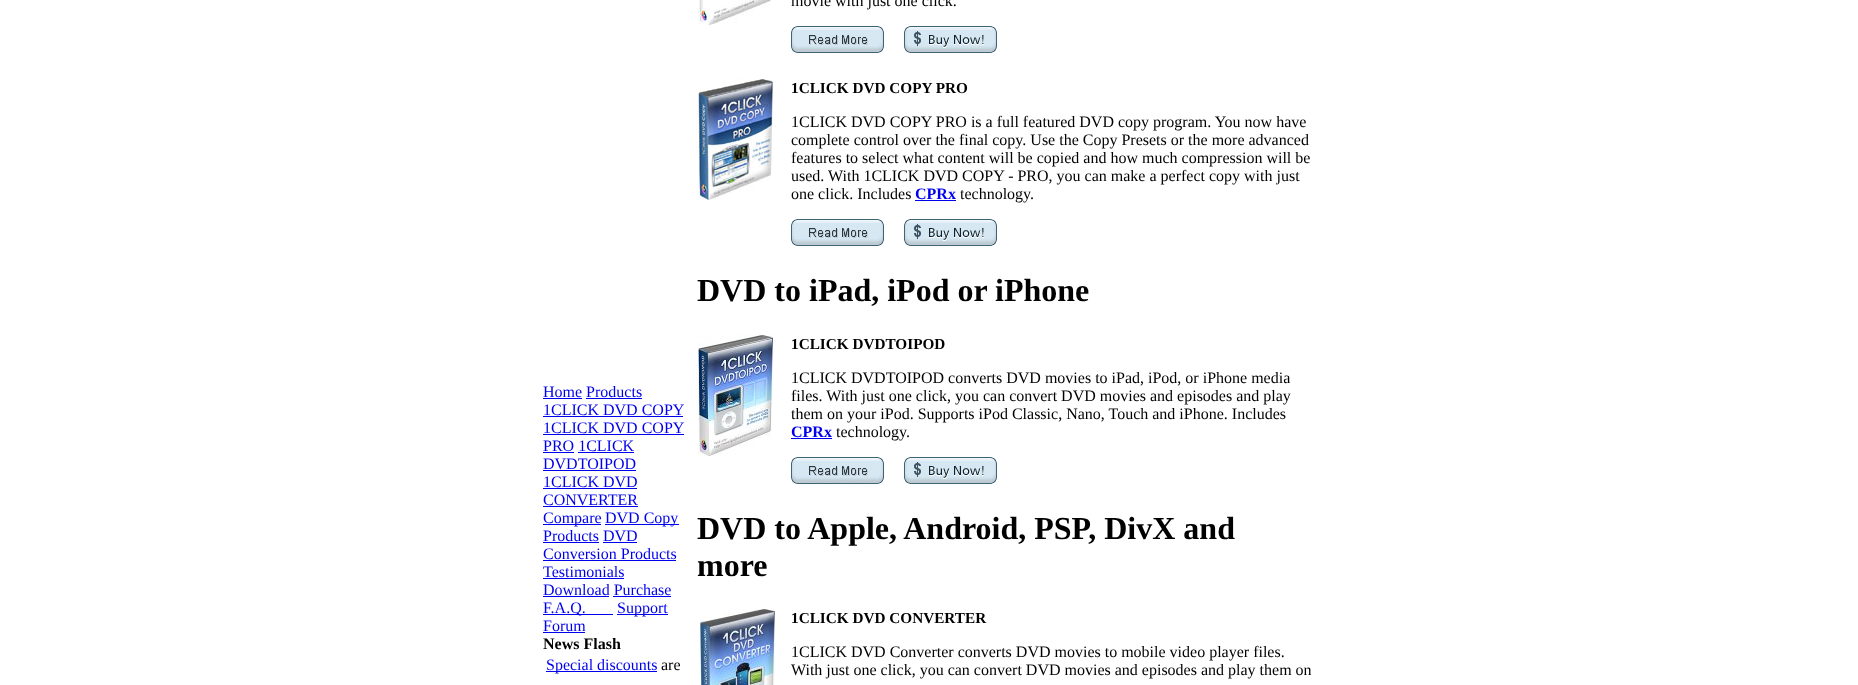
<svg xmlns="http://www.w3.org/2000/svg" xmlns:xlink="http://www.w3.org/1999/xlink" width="1858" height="685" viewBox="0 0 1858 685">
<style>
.cls-1{font:16px Liberation Serif;fill:#0000ee}
.cls-2{font:bold 16px Liberation Serif;fill:#000000}
.cls-3{font:16px Liberation Serif;fill:#000000}
.cls-4{font:bold 15.25px Liberation Serif;fill:#000000}
.cls-5{font:bold 16px Liberation Serif;fill:#0000ee}
.cls-6{font:bold 32px Liberation Serif;fill:#000000}
</style>
<rect width="100%" height="100%" fill="#ffffff"/>
<rect fill="#0000ee" x="543" y="398" width="39" height="1"/>
<rect fill="#0000ee" x="586" y="398" width="56" height="1"/>
<rect fill="#0000ee" x="543" y="416" width="140" height="1"/>
<rect fill="#0000ee" x="543" y="434" width="141" height="1"/>
<rect fill="#0000ee" x="543" y="452" width="31" height="1"/>
<rect fill="#0000ee" x="578" y="452" width="56" height="1"/>
<rect fill="#0000ee" x="543" y="470" width="93" height="1"/>
<rect fill="#0000ee" x="543" y="488" width="94" height="1"/>
<rect fill="#0000ee" x="543" y="506" width="95" height="1"/>
<rect fill="#0000ee" x="543" y="524" width="58" height="1"/>
<rect fill="#0000ee" x="605" y="524" width="74" height="1"/>
<rect fill="#0000ee" x="543" y="542" width="56" height="1"/>
<rect fill="#0000ee" x="603" y="542" width="34" height="1"/>
<rect fill="#0000ee" x="543" y="560" width="133" height="1"/>
<rect fill="#0000ee" x="543" y="578" width="81" height="1"/>
<rect fill="#0000ee" x="543" y="596" width="66" height="1"/>
<rect fill="#0000ee" x="613" y="596" width="58" height="1"/>
<rect fill="#0000ee" x="543" y="614" width="70" height="1"/>
<rect fill="#0000ee" x="617" y="614" width="51" height="1"/>
<rect fill="#0000ee" x="543" y="632" width="42" height="1"/>
<rect fill="#0000ee" x="546" y="671" width="111" height="1"/>
<image xlink:href="image0.png" x="698" y="0" width="73" height="26"/>
<image xlink:href="image1.png" x="791" y="26" width="93" height="27"/>
<image xlink:href="image2.png" x="904" y="26" width="93" height="27"/>
<image xlink:href="image3.png" x="698" y="79" width="75" height="121"/>
<rect fill="#0000ee" x="915" y="200" width="41" height="1"/>
<image xlink:href="image1.png" x="791" y="219" width="93" height="27"/>
<image xlink:href="image2.png" x="904" y="219" width="93" height="27"/>
<image xlink:href="image4.png" x="698" y="335" width="75" height="121"/>
<rect fill="#0000ee" x="791" y="438" width="41" height="1"/>
<image xlink:href="image1.png" x="791" y="457" width="93" height="27"/>
<image xlink:href="image2.png" x="904" y="457" width="93" height="27"/>
<image xlink:href="image5.png" x="700" y="609" width="75" height="76"/>
<text class="cls-1"><tspan x="543" y="397">Home Products</tspan><tspan x="543" y="415">1CLICK DVD COPY</tspan><tspan x="543" y="433">1CLICK DVD COPY</tspan><tspan x="543" y="451">PRO 1CLICK</tspan><tspan x="543" y="469">DVDTOIPOD</tspan><tspan x="543" y="487">1CLICK DVD</tspan><tspan x="543" y="505">CONVERTER</tspan><tspan x="543" y="523">Compare</tspan></text>
<text class="cls-1" x="605" y="523">DVD Copy</text>
<text class="cls-1"><tspan x="543" y="541">Products DVD</tspan><tspan x="543" y="559">Conversion Products</tspan><tspan x="543" y="577">Testimonials</tspan><tspan x="543" y="595">Download Purchase</tspan><tspan x="543" y="613">F.A.Q.</tspan></text>
<text class="cls-1" x="617" y="613">Support</text>
<text class="cls-1" x="543" y="631">Forum</text>
<text class="cls-2" x="543" y="649">News Flash</text>
<text class="cls-1" x="546" y="670">Special discounts</text>
<text class="cls-3" x="661" y="670">are</text>
<text class="cls-3" x="791" y="6">movie with just one click.</text>
<text class="cls-4" x="791" y="93">1CLICK DVD COPY PRO</text>
<text class="cls-3"><tspan x="791" y="127">1CLICK DVD COPY PRO is a full featured DVD copy program. You now have</tspan><tspan x="791" y="145">complete control over the final copy. Use the Copy Presets or the more advanced</tspan><tspan x="791" y="163">features to select what content will be copied and how much compression will be</tspan><tspan x="791" y="181">used. With 1CLICK DVD COPY - PRO, you can make a perfect copy with just</tspan><tspan x="791" y="199">one click. Includes</tspan></text>
<text class="cls-5" x="915" y="199">CPRx</text>
<text class="cls-3" x="960" y="199">technology.</text>
<text class="cls-6" x="697" y="301">DVD to iPad, iPod or iPhone</text>
<text class="cls-4" x="791" y="349">1CLICK DVDTOIPOD</text>
<text class="cls-3"><tspan x="791" y="383">1CLICK DVDTOIPOD converts DVD movies to iPad, iPod, or iPhone media</tspan><tspan x="791" y="401">files. With just one click, you can convert DVD movies and episodes and play</tspan><tspan x="791" y="419">them on your iPod. Supports iPod Classic, Nano, Touch and iPhone. Includes</tspan></text>
<text class="cls-5" x="791" y="437">CPRx</text>
<text class="cls-3" x="836" y="437">technology.</text>
<text class="cls-6"><tspan x="697" y="539">DVD to Apple, Android, PSP, DivX and</tspan><tspan x="697" y="576">more</tspan></text>
<text class="cls-4" x="791" y="623">1CLICK DVD CONVERTER</text>
<text class="cls-3"><tspan x="791" y="657">1CLICK DVD Converter converts DVD movies to mobile video player files.</tspan><tspan x="791" y="675">With just one click, you can convert DVD movies and episodes and play them on</tspan></text>
</svg>
